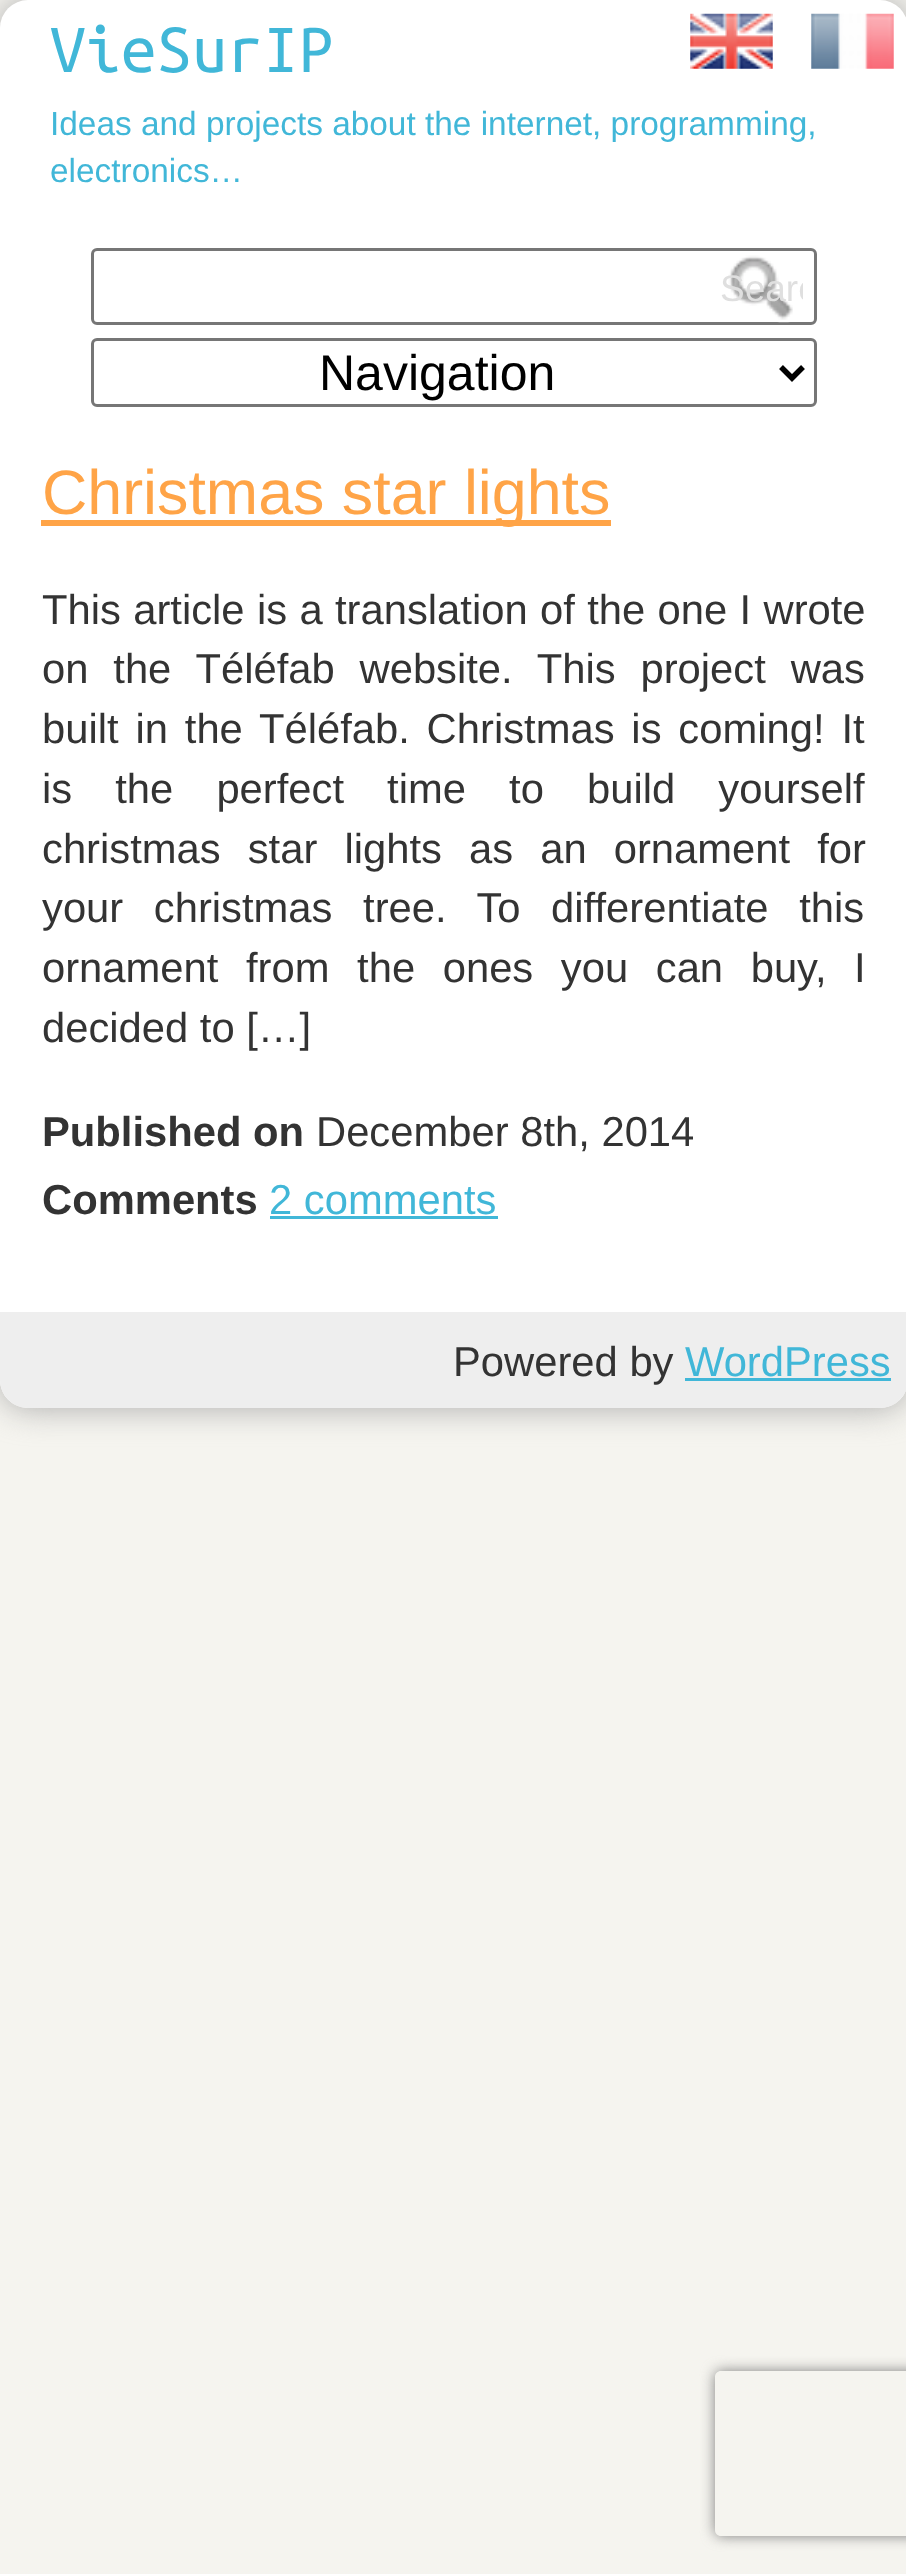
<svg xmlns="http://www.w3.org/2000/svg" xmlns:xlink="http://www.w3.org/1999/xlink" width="906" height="2574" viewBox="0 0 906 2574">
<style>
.cls-1{font:71px Ubuntu Mono;fill:#41b7d8}
.cls-2{font:33.4px Liberation Sans;fill:#41b7d8}
.cls-3{font:37px Liberation Sans;fill:#dfdfdf}
.cls-4{font:50px Liberation Sans;fill:#000000}
.cls-5{font:62.75px Liberation Sans;fill:#ffa447}
.cls-6{font:41.75px Liberation Sans;fill:#333333}
.cls-7{font:bold 41.75px Liberation Sans;fill:#333333}
.cls-8{font:41.75px Liberation Sans;fill:#41b7d8}
</style>
<defs>
<clipPath id="clip1"><path d="M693 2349H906V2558H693ZM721 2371H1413C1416.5 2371 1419 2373.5 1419 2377V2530C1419 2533.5 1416.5 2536 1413 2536H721C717.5 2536 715 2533.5 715 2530V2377C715 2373.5 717.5 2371 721 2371Z" clip-rule="evenodd"/></clipPath>
<clipPath id="clip2"><rect x="721" y="248" width="82" height="82"/></clipPath>
</defs>
<rect width="100%" height="100%" fill="#f5f4ef"/>
<rect fill="#aaaaaa" filter="blur(16.5px)" x="0" y="0" width="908" height="1408" rx="28"/>
<rect fill="#ffffff" x="0" y="0" width="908" height="1408" rx="28"/>
<image xlink:href="image0.png" x="690" y="13" width="83" height="56"/>
<image xlink:href="image1.png" x="811" y="13" width="83" height="56"/>
<rect fill="none" stroke="#767676" stroke-width="3" x="92.5" y="249.5" width="723" height="74" rx="4.5"/>
<image xlink:href="image2.png" x="728" y="255" width="65" height="68"/>
<rect fill="none" stroke="#767676" stroke-width="3" x="92.5" y="339.5" width="723" height="66" rx="4.5"/>
<path fill="none" stroke="#000000" stroke-width="5.5" d="M781 367L792 378L803 367"/>
<rect fill="#ffa447" x="41" y="520" width="570" height="6"/>
<rect fill="#41b7d8" x="270" y="1216" width="228" height="3"/>
<path fill="#eeeeee" d="M0 1312H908V1380C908 1395.5 895.5 1408 880 1408H28C12.5 1408 0 1395.5 0 1380Z"/>
<rect fill="#41b7d8" x="685" y="1378" width="206" height="3"/>
<g clip-path="url(#clip1)">
<rect fill="#808080" filter="blur(7px)" x="715" y="2371" width="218" height="165" rx="6"/>
</g>
<text class="cls-1" x="50" y="72">VieSurIP</text>
<text class="cls-2"><tspan x="50" y="135">Ideas and projects about the internet, programming,</tspan><tspan x="50" y="182">electronics…</tspan></text>
<g clip-path="url(#clip2)">
<text class="cls-3" x="720" y="301">Searc</text>
</g>
<text class="cls-4" x="319" y="390">Navigation</text>
<text class="cls-5" x="42" y="514">Christmas star lights</text>
<text class="cls-6"><tspan x="42" y="624" word-spacing="0.75">This article is a translation of the one I wrote</tspan><tspan x="42" y="683" word-spacing="13.25">on the Téléfab website. This project was</tspan><tspan x="42" y="743" word-spacing="5.25">built in the Téléfab. Christmas is coming! It</tspan><tspan x="42" y="803" word-spacing="31.5">is the perfect time to build yourself</tspan><tspan x="42" y="863" word-spacing="15.5">christmas star lights as an ornament for</tspan><tspan x="42" y="922" word-spacing="19">your christmas tree. To differentiate this</tspan><tspan x="42" y="982" word-spacing="16">ornament from the ones you can buy, I</tspan><tspan x="42" y="1042">decided to […]</tspan></text>
<text class="cls-7" x="42" y="1146">Published on</text>
<text class="cls-6" x="316" y="1146">December 8th, 2014</text>
<text class="cls-7" x="42" y="1214">Comments</text>
<text class="cls-8" x="269" y="1214">2 comments</text>
<text class="cls-6" x="453" y="1376">Powered by</text>
<text class="cls-8" x="685" y="1376">WordPress</text>
</svg>
